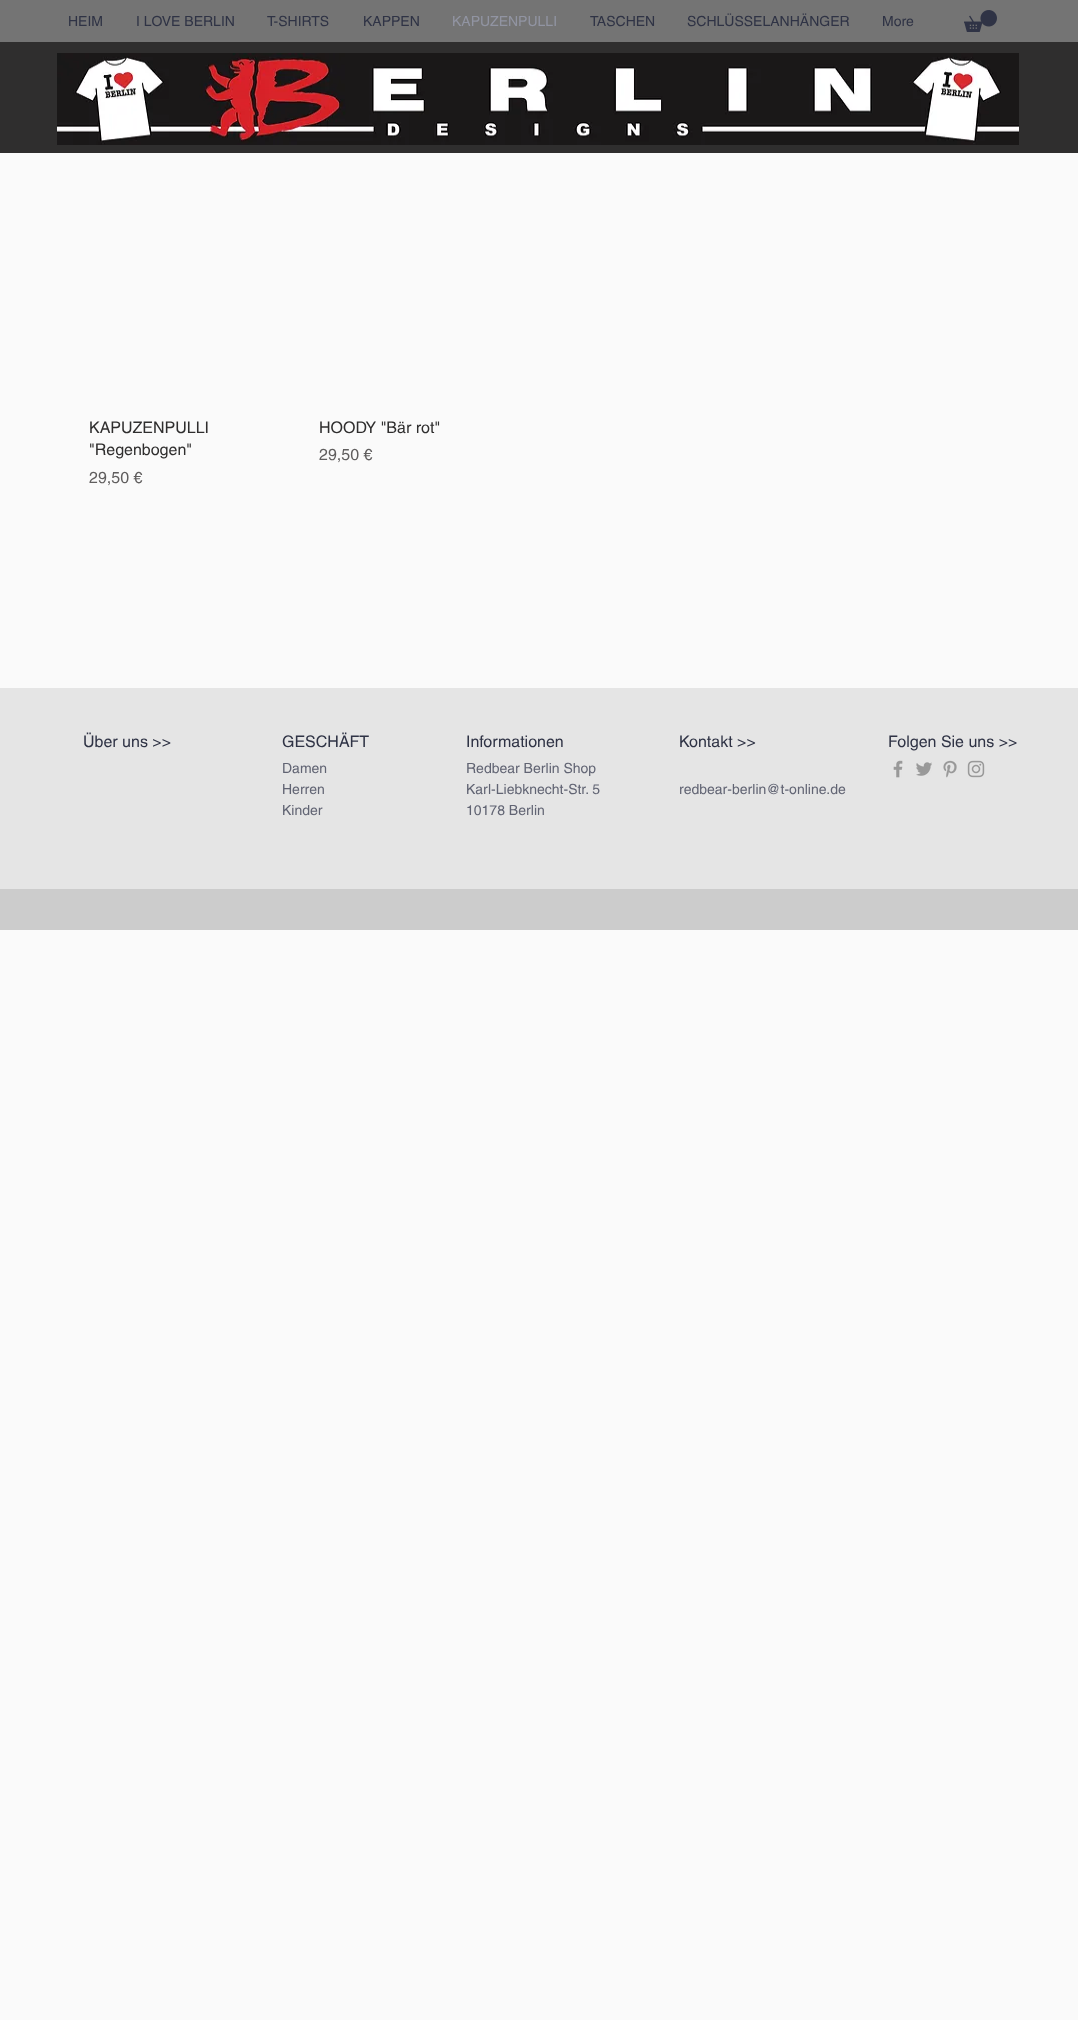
<svg xmlns="http://www.w3.org/2000/svg" xmlns:xlink="http://www.w3.org/1999/xlink" width="1078" height="2020" viewBox="0 0 1078 2020">
<style>
.cls-1{font:14px helvetica;fill:#2f3345}
.cls-2{font:14px helvetica;fill:#9194a2}
.cls-3{font:16px helvetica;fill:#2f2e2e}
.cls-4{font:16px helvetica;fill:#605e5e}
.cls-5{font:16px helvetica;fill:#2f3345}
.cls-6{font:14px helvetica;fill:#616473}
</style>
<rect width="100%" height="100%" fill="#fafafa"/>
<rect fill="#747474" x="0" y="0" width="1078" height="42"/>
<image xlink:href="image0.png" x="964" y="10" width="33" height="22"/>
<rect fill="#2f2e2e" x="0" y="42" width="1078" height="111"/>
<image xlink:href="image1.png" x="57" y="53" width="962" height="92"/>
<rect fill="#e5e5e5" x="0" y="688" width="1078" height="201"/>
<image xlink:href="image2.png" x="893" y="760" width="10" height="18"/>
<image xlink:href="image3.png" x="916" y="762" width="16" height="14"/>
<image xlink:href="image4.png" x="943" y="760" width="14" height="18"/>
<image xlink:href="image5.png" x="967" y="760" width="18" height="18"/>
<rect fill="#cccccc" x="0" y="889" width="1078" height="41"/>
<text class="cls-1" x="68" y="26">HEIM</text>
<text class="cls-1" x="136" y="26">I LOVE BERLIN</text>
<text class="cls-1" x="267" y="26">T-SHIRTS</text>
<text class="cls-1" x="363" y="26">KAPPEN</text>
<text class="cls-2" x="452" y="26">KAPUZENPULLI</text>
<text class="cls-1" x="590" y="26">TASCHEN</text>
<text class="cls-1" x="687" y="26">SCHLÜSSELANHÄNGER</text>
<text class="cls-1" x="882" y="26">More</text>
<text class="cls-3"><tspan x="89" y="433">KAPUZENPULLI</tspan><tspan x="89" y="455">"Regenbogen"</tspan></text>
<text class="cls-4" x="89" y="483">29,50 €</text>
<text class="cls-3" x="319" y="433">HOODY "Bär rot"</text>
<text class="cls-4" x="319" y="460">29,50 €</text>
<text class="cls-5" x="83" y="747">Über uns &gt;&gt;</text>
<text class="cls-5" x="282" y="747">GESCHÄFT</text>
<text class="cls-5" x="466" y="747">Informationen</text>
<text class="cls-5" x="679" y="747">Kontakt &gt;&gt;</text>
<text class="cls-5" x="888" y="747">Folgen Sie uns &gt;&gt;</text>
<text class="cls-6"><tspan x="282" y="773">Damen</tspan><tspan x="282" y="794">Herren</tspan><tspan x="282" y="815">Kinder</tspan></text>
<text class="cls-6"><tspan x="466" y="773">Redbear Berlin Shop</tspan><tspan x="466" y="794">Karl-Liebknecht-Str. 5</tspan><tspan x="466" y="815">10178 Berlin</tspan></text>
<text class="cls-6" x="679" y="794">redbear-berlin@t-online.de</text>
</svg>
